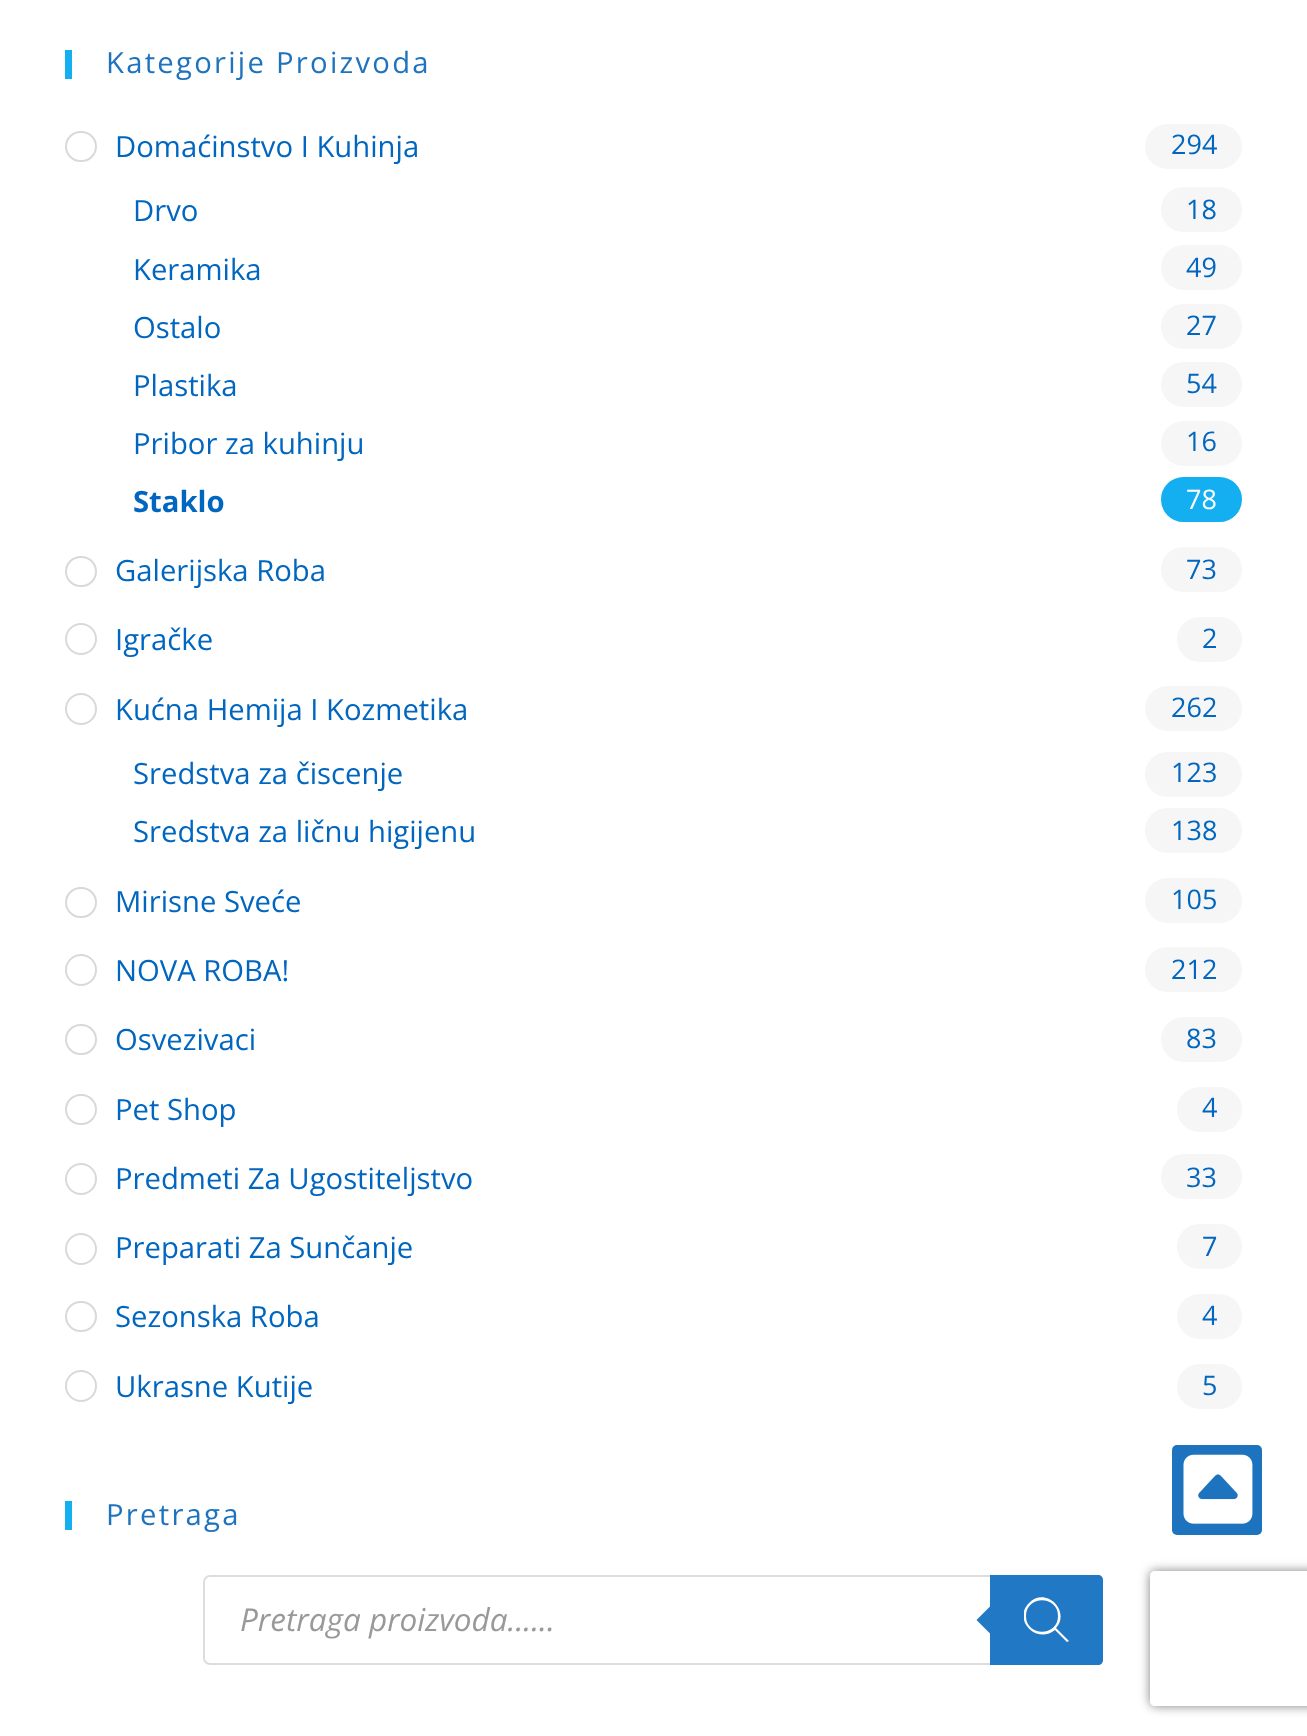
<svg xmlns="http://www.w3.org/2000/svg" xmlns:xlink="http://www.w3.org/1999/xlink" width="1307" height="1736" viewBox="0 0 1307 1736">
<style>
.cls-1{font:29.25px Open Sans;letter-spacing:2.25px;fill:#1e73be}
.cls-2{font:29.25px Open Sans;fill:#0066bf}
.cls-3{font:27px Open Sans;fill:#0066bf}
.cls-4{font:bold 29.25px Open Sans;fill:#0066bf}
.cls-5{font:27px Open Sans;fill:#ffffff}
.cls-6{font:italic 31.5px Open Sans;fill:#999999}
</style>
<defs>
<clipPath id="clip1"><rect x="1024" y="1591" width="45" height="58"/></clipPath>
<clipPath id="clip2"><path d="M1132 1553H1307V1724H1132ZM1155 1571H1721C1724 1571 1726 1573 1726 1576V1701C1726 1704 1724 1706 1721 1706H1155C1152 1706 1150 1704 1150 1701V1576C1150 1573 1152 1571 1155 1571Z" clip-rule="evenodd"/></clipPath>
</defs>
<rect width="100%" height="100%" fill="#ffffff"/>
<rect fill="#13aff0" x="65" y="50" width="7" height="29"/>
<rect fill="none" stroke="#d9d9d9" stroke-width="2" x="66" y="132" width="30" height="29" rx="14.5"/>
<rect fill="#f6f6f6" x="1145" y="124" width="97" height="45" rx="22.5"/>
<rect fill="#f6f6f6" x="1161" y="187" width="81" height="45" rx="22.5"/>
<rect fill="#f6f6f6" x="1161" y="245" width="81" height="45" rx="22.5"/>
<rect fill="#f6f6f6" x="1161" y="304" width="81" height="45" rx="22.5"/>
<rect fill="#f6f6f6" x="1161" y="362" width="81" height="45" rx="22.5"/>
<rect fill="#f6f6f6" x="1161" y="421" width="81" height="45" rx="22.5"/>
<rect fill="#13aff0" stroke="#13aff0" stroke-width="2" x="1162" y="478" width="79" height="43" rx="21.5"/>
<rect fill="none" stroke="#d9d9d9" stroke-width="2" x="66" y="557" width="30" height="29" rx="14.5"/>
<rect fill="#f6f6f6" x="1161" y="547" width="81" height="45" rx="22.5"/>
<circle fill="none" stroke="#d9d9d9" stroke-width="2" cx="81" cy="639" r="15"/>
<rect fill="#f6f6f6" x="1177" y="617" width="65" height="45" rx="22.5"/>
<circle fill="none" stroke="#d9d9d9" stroke-width="2" cx="81" cy="709" r="15"/>
<rect fill="#f6f6f6" x="1145" y="686" width="97" height="45" rx="22.5"/>
<rect fill="#f6f6f6" x="1145" y="752" width="97" height="45" rx="22.5"/>
<rect fill="#f6f6f6" x="1145" y="808" width="97" height="45" rx="22.5"/>
<rect fill="none" stroke="#d9d9d9" stroke-width="2" x="66" y="888" width="30" height="29" rx="14.5"/>
<rect fill="#f6f6f6" x="1145" y="878" width="97" height="45" rx="22.5"/>
<circle fill="none" stroke="#d9d9d9" stroke-width="2" cx="81" cy="970" r="15"/>
<rect fill="#f6f6f6" x="1145" y="947" width="97" height="45" rx="22.5"/>
<rect fill="none" stroke="#d9d9d9" stroke-width="2" x="66" y="1025" width="30" height="29" rx="14.5"/>
<rect fill="#f6f6f6" x="1161" y="1017" width="81" height="45" rx="22.5"/>
<rect fill="none" stroke="#d9d9d9" stroke-width="2" x="66" y="1095" width="30" height="29" rx="14.5"/>
<rect fill="#f6f6f6" x="1177" y="1087" width="65" height="45" rx="22.5"/>
<circle fill="none" stroke="#d9d9d9" stroke-width="2" cx="81" cy="1179" r="15"/>
<rect fill="#f6f6f6" x="1161" y="1154" width="81" height="45" rx="22.5"/>
<circle fill="none" stroke="#d9d9d9" stroke-width="2" cx="81" cy="1249" r="15"/>
<rect fill="#f6f6f6" x="1177" y="1224" width="65" height="45" rx="22.5"/>
<rect fill="none" stroke="#d9d9d9" stroke-width="2" x="66" y="1302" width="30" height="29" rx="14.5"/>
<rect fill="#f6f6f6" x="1177" y="1294" width="65" height="45" rx="22.5"/>
<circle fill="none" stroke="#d9d9d9" stroke-width="2" cx="81" cy="1386" r="15"/>
<rect fill="#f6f6f6" x="1177" y="1364" width="65" height="45" rx="22.5"/>
<rect fill="#13aff0" x="65" y="1501" width="7" height="29"/>
<rect fill="none" stroke="#dddddd" stroke-width="2" x="204" y="1576" width="898" height="88" rx="6"/>
<path fill="#2178c4" d="M990 1575H1098C1101 1575 1103 1577 1103 1580V1660C1103 1663 1101 1665 1098 1665H990Z"/>
<path fill="#2178c4" d="M994.5 1602V1638L976.5 1620Z"/>
<g clip-path="url(#clip1)">
<path fill="#ffffff" d="M1069 1641L1056 1628C1071 1611 1046 1586 1029 1603C1012 1620 1037 1645 1055 1630L1067 1642ZM1026 1616C1026 1595 1058 1595 1058 1616C1058 1637 1026 1637 1026 1616Z"/>
</g>
<rect fill="#1e73be" x="1172" y="1445" width="90" height="90" rx="5"/>
<image xlink:href="image0.png" x="1183" y="1454" width="70" height="70"/>
<g clip-path="url(#clip2)">
<rect fill="#808080" filter="blur(5.5px)" x="1150" y="1571" width="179" height="135" rx="5"/>
</g>
<text class="cls-1" x="106" y="73">Kategorije Proizvoda</text>
<text class="cls-2" x="115" y="157">Domaćinstvo I Kuhinja</text>
<text class="cls-3" x="1171" y="154">294</text>
<text class="cls-2" x="133" y="221">Drvo</text>
<text class="cls-3" x="1186" y="219">18</text>
<text class="cls-2" x="133" y="280">Keramika</text>
<text class="cls-3" x="1186" y="277">49</text>
<text class="cls-2" x="133" y="338">Ostalo</text>
<text class="cls-3" x="1186" y="335">27</text>
<text class="cls-2" x="133" y="396">Plastika</text>
<text class="cls-3" x="1186" y="393">54</text>
<text class="cls-2" x="133" y="454">Pribor za kuhinju</text>
<text class="cls-3" x="1186" y="451">16</text>
<text class="cls-4" x="133" y="512">Staklo</text>
<text class="cls-5" x="1186" y="509">78</text>
<text class="cls-2" x="115" y="581">Galerijska Roba</text>
<text class="cls-3" x="1186" y="579">73</text>
<text class="cls-2" x="115" y="650">Igračke</text>
<text class="cls-3" x="1202" y="648">2</text>
<text class="cls-2" x="115" y="720">Kućna Hemija I Kozmetika</text>
<text class="cls-3" x="1171" y="717">262</text>
<text class="cls-2" x="133" y="784">Sredstva za čiscenje</text>
<text class="cls-3" x="1171" y="782">123</text>
<text class="cls-2" x="133" y="842">Sredstva za ličnu higijenu</text>
<text class="cls-3" x="1171" y="840">138</text>
<text class="cls-2" x="115" y="912">Mirisne Sveće</text>
<text class="cls-3" x="1171" y="909">105</text>
<text class="cls-2" x="115" y="981">NOVA ROBA!</text>
<text class="cls-3" x="1171" y="979">212</text>
<text class="cls-2" x="115" y="1050">Osvezivaci</text>
<text class="cls-3" x="1186" y="1048">83</text>
<text class="cls-2" x="115" y="1120">Pet Shop</text>
<text class="cls-3" x="1202" y="1117">4</text>
<text class="cls-2" x="115" y="1189">Predmeti Za Ugostiteljstvo</text>
<text class="cls-3" x="1186" y="1187">33</text>
<text class="cls-2" x="115" y="1258">Preparati Za Sunčanje</text>
<text class="cls-3" x="1202" y="1256">7</text>
<text class="cls-2" x="115" y="1327">Sezonska Roba</text>
<text class="cls-3" x="1202" y="1325">4</text>
<text class="cls-2" x="115" y="1397">Ukrasne Kutije</text>
<text class="cls-3" x="1202" y="1395">5</text>
<text class="cls-1" x="106" y="1525">Pretraga</text>
<text class="cls-6" x="240" y="1631">Pretraga proizvoda......</text>
</svg>
